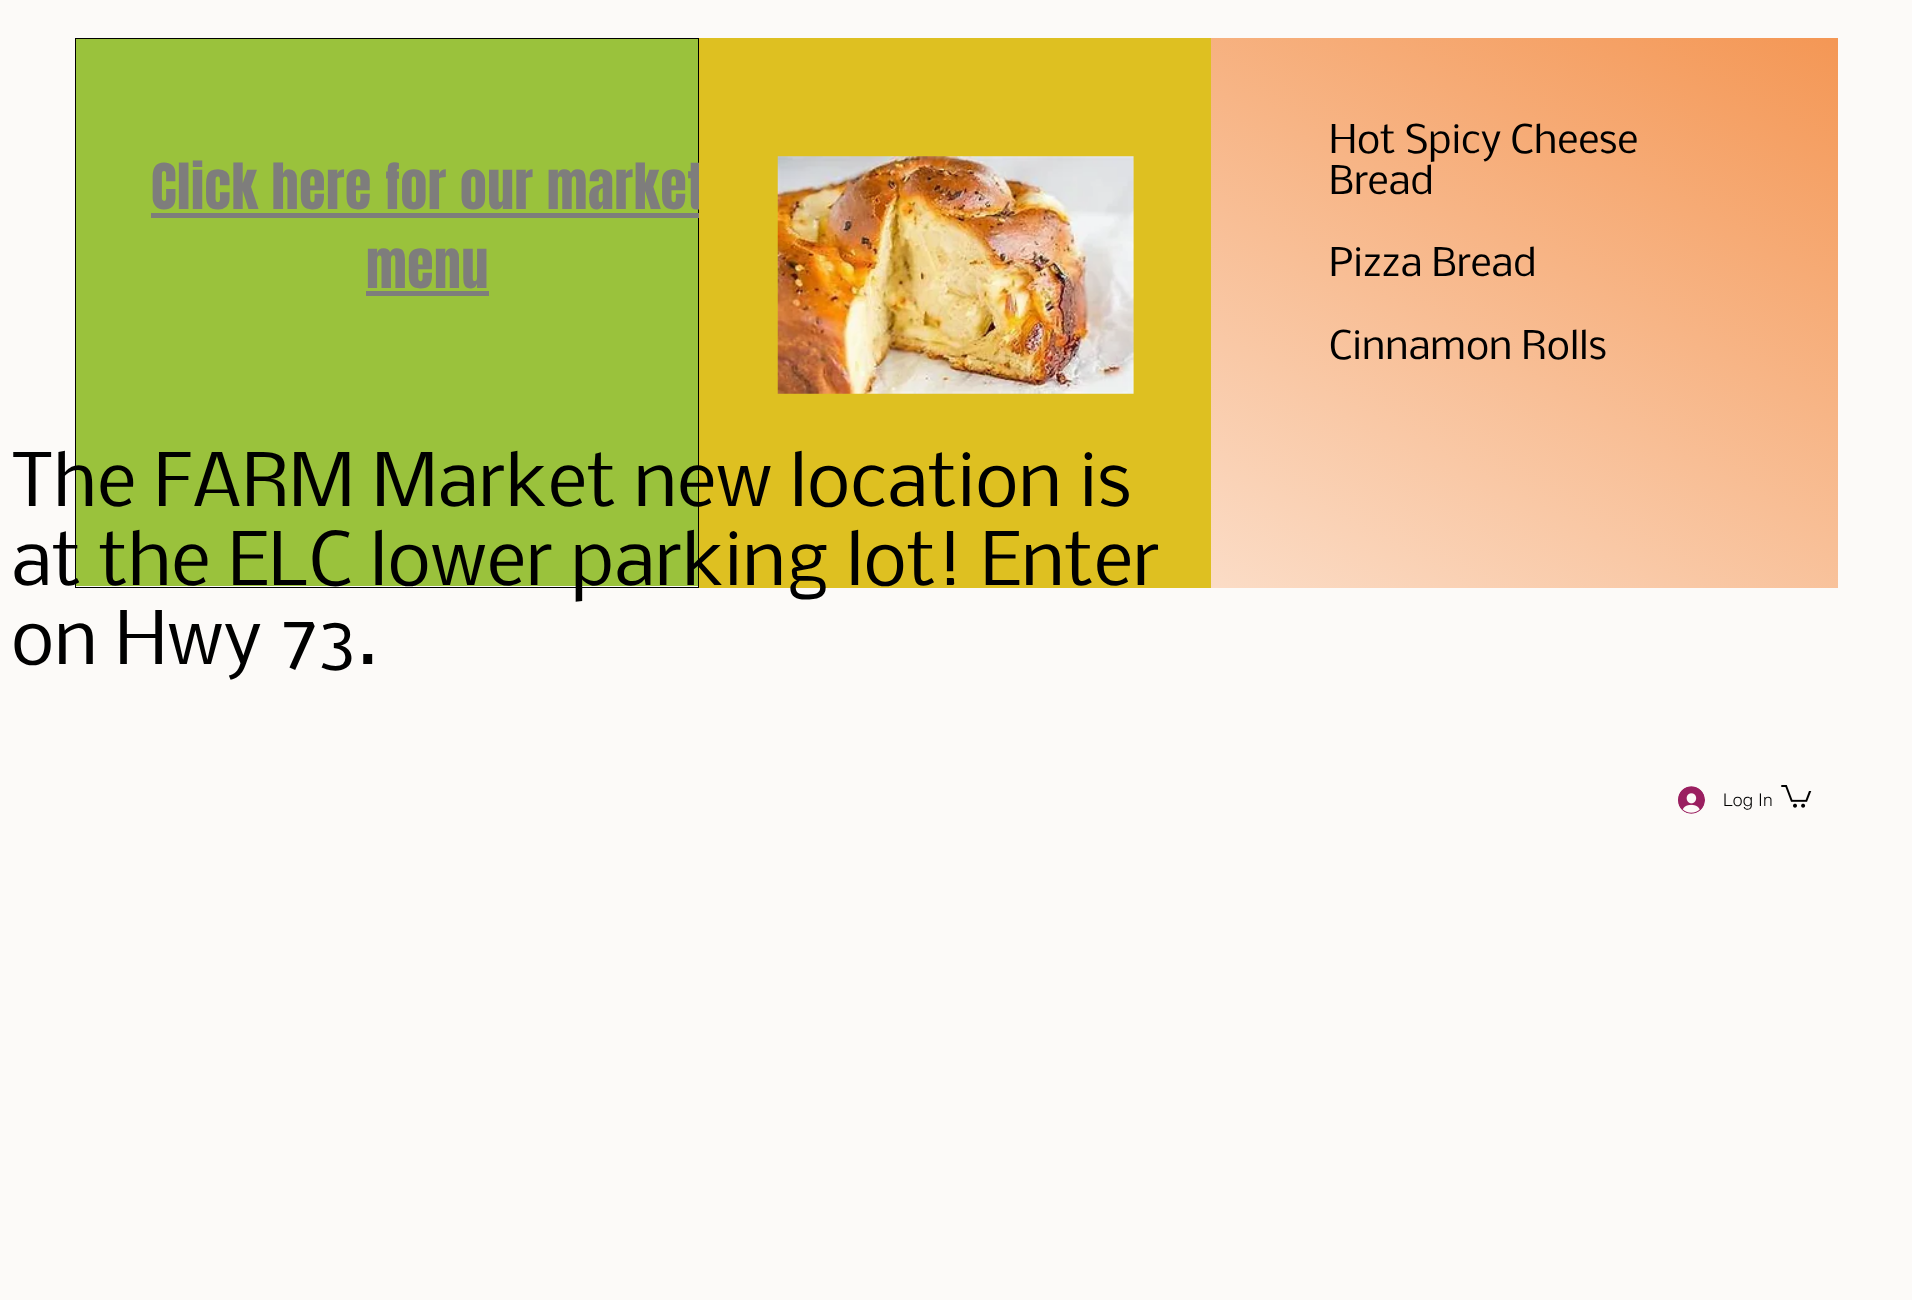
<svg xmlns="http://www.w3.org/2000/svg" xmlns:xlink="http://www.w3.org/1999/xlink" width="1912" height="1300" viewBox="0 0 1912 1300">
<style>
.cls-1{font:53.75px Anton;letter-spacing:0.55px;fill:#7e7d7c}
.cls-2{font:37.5px Nobile;fill:#000000}
.cls-3{font:70px Nobile;fill:#000000}
.cls-4{font:300 17.5px helvetica;fill:#000000}
</style>
<defs>
<linearGradient id="g1" gradientUnits="userSpaceOnUse" x1="1707" y1="-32" x2="1341" y2="657"><stop offset="0" stop-color="#f49755"/><stop offset="1" stop-color="#fbdcc6"/></linearGradient>
</defs>
<rect width="100%" height="100%" fill="#fcfaf8"/>
<rect fill="none" stroke="#000000" x="75.5" y="38.5" width="623" height="549"/>
<rect fill="#9ac23c" x="76" y="39" width="622" height="547"/>
<rect fill="#7e7d7c" x="151" y="213" width="553" height="5"/>
<rect fill="#7e7d7c" x="366" y="291" width="123" height="5"/>
<rect fill="url(#g1)" x="1211" y="38" width="627" height="550"/>
<image xlink:href="image1.png" x="1678" y="786" width="27" height="28"/>
<image xlink:href="image2.png" x="1781" y="785" width="31" height="23"/>
<text class="cls-1" x="151" y="209">Click here for our market</text>
<text class="cls-1" x="366" y="288">menu</text>
<rect fill="#dec021" x="699" y="38" width="512" height="550"/>
<image xlink:href="image0.png" x="777" y="156" width="357" height="238"/>
<text class="cls-2"><tspan x="1329" y="153">Hot Spicy Cheese</tspan><tspan x="1329" y="194">Bread</tspan></text>
<text class="cls-2" x="1329" y="276">Pizza Bread</text>
<text class="cls-2" x="1329" y="359">Cinnamon Rolls</text>
<text class="cls-3"><tspan x="11" y="506">The FARM Market new location is</tspan><tspan x="11" y="585">at the ELC lower parking lot! Enter</tspan><tspan x="11" y="664">on Hwy 73.</tspan></text>
<text class="cls-4" x="1723" y="806">Log In</text>
</svg>
